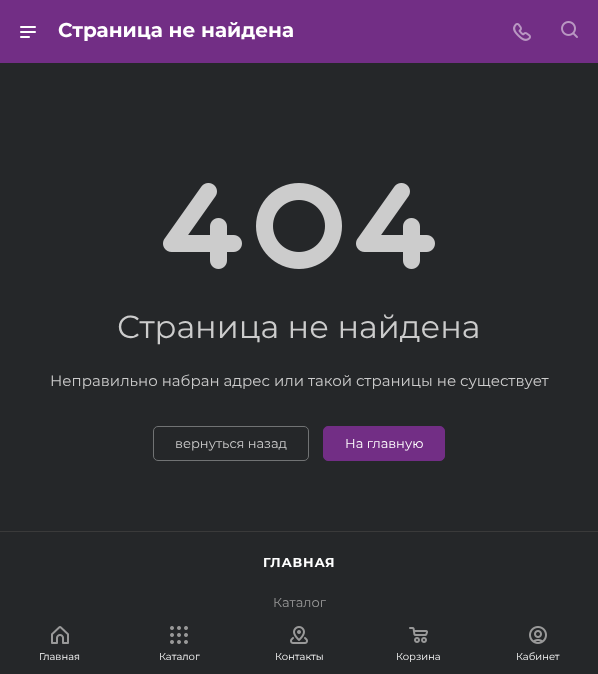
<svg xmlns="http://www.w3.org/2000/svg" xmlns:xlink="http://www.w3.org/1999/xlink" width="598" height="674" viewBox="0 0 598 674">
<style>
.cls-1{font:bold 20px Montserrat;fill:#ffffff}
.cls-2{font:32px Montserrat;fill:#cccccc}
.cls-3{font:15px Montserrat;fill:#cccccc}
.cls-4{font:13px Montserrat;fill:#cccccc}
.cls-5{font:13px Montserrat;fill:#ffffff}
.cls-6{font:bold 13px Montserrat;letter-spacing:0.75px;fill:#ffffff}
.cls-7{font:13px Montserrat;fill:#999999}
.cls-8{font:10px Montserrat;fill:#ffffff}
</style>
<rect width="100%" height="100%" fill="#252729"/>
<rect fill="#722e85" x="0" y="0" width="598" height="63"/>
<image xlink:href="image0.png" x="20" y="26" width="16" height="12"/>
<image xlink:href="image1.png" x="513" y="23" width="18" height="18"/>
<image xlink:href="image2.png" x="561" y="21" width="17" height="17"/>
<image xlink:href="image3.png" x="163" y="183" width="272" height="86"/>
<rect fill="none" stroke="#717374" x="153.5" y="426.5" width="155" height="34" rx="4.5"/>
<rect fill="#722e85" stroke="#722e85" x="323.5" y="426.5" width="121" height="34" rx="4.5"/>
<rect fill="#3a3a3a" x="0" y="531" width="598" height="1"/>
<image xlink:href="image4.png" x="51" y="626" width="18" height="18"/>
<image xlink:href="image5.png" x="170" y="626" width="18" height="18"/>
<image xlink:href="image6.png" x="290" y="626" width="18" height="18"/>
<image xlink:href="image7.png" x="409" y="627" width="19" height="16"/>
<image xlink:href="image8.png" x="529" y="626" width="18" height="18"/>
<text class="cls-1" x="58" y="37">Страница не найдена</text>
<text class="cls-2" x="117" y="338">Страница не найдена</text>
<text class="cls-3" x="50" y="386">Неправильно набран адрес или такой страницы не существует</text>
<text class="cls-4" x="175" y="448">вернуться назад</text>
<text class="cls-5" x="345" y="448">На главную</text>
<text class="cls-6" x="263" y="567">ГЛАВНАЯ</text>
<text class="cls-7" x="273" y="607">Каталог</text>
<text class="cls-8" x="39" y="660">Главная</text>
<text class="cls-8" x="159" y="660">Каталог</text>
<text class="cls-8" x="275" y="660">Контакты</text>
<text class="cls-8" x="396" y="660">Корзина</text>
<text class="cls-8" x="516" y="660">Кабинет</text>
</svg>
